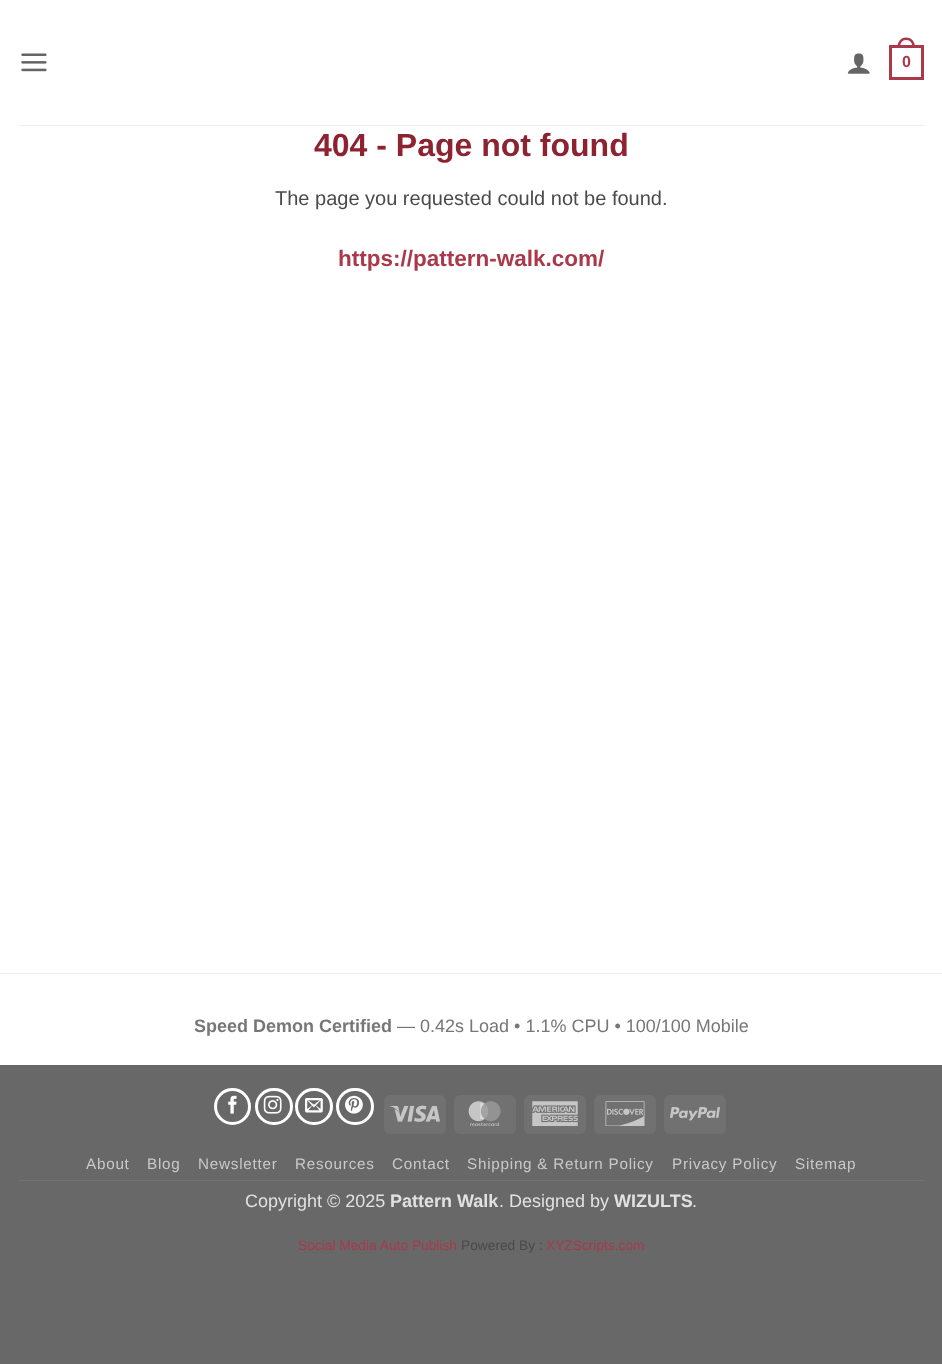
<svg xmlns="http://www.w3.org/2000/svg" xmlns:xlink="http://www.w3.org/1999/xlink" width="942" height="1364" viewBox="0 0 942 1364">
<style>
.cls-1{font:bold 16px Liberation Sans;fill:#aa394b}
.cls-2{font:bold 32px Liberation Sans;fill:#8d2330}
.cls-3{font:20px Liberation Sans;fill:#4a4a4a}
.cls-4{font:bold 22.5px Liberation Sans;fill:#aa394b}
.cls-5{font:bold 18px Liberation Sans;fill:#777777}
.cls-6{font:18px Liberation Sans;fill:#777777}
.cls-7{font:15.25px Liberation Sans;letter-spacing:0.75px;fill:#c9c9c9}
.cls-8{font:18px Liberation Sans;fill:#e1e1e1}
.cls-9{font:bold 18px Liberation Sans;fill:#e1e1e1}
.cls-10{font:13.75px Liberation Sans;fill:#aa394b}
.cls-11{font:13.75px Liberation Sans;fill:#4a4a4a}
</style>
<rect width="100%" height="100%" fill="#686868"/>
<rect fill="#ffffff" x="0" y="0" width="942" height="1065"/>
<image xlink:href="image0.png" x="21" y="53" width="26" height="19"/>
<image xlink:href="image1.png" x="847" y="53" width="23" height="21"/>
<rect fill="none" stroke="#aa394b" stroke-width="3" x="890.5" y="46.5" width="32" height="32"/>
<path fill="#aa394b" fill-rule="evenodd" d="M906 37.5C912 37.5 915 42 915 47.5H897.5C897.5 42 900.5 37.5 906 37.5ZM906 40C910.5 40 912.5 43.5 912.5 47.5H900C900 43.5 902 40 906 40Z"/>
<rect fill="#ededed" x="19" y="125" width="905" height="1"/>
<rect fill="#eeeeee" x="0" y="973" width="942" height="1"/>
<circle fill="none" stroke="#ffffff" stroke-width="3" cx="232.5" cy="1106.5" r="17"/>
<image xlink:href="image2.png" x="228" y="1095" width="9" height="19"/>
<rect fill="none" stroke="#ffffff" stroke-width="3" x="256.5" y="1089.5" width="35" height="34" rx="17"/>
<image xlink:href="image3.png" x="263" y="1095" width="19" height="19"/>
<rect fill="none" stroke="#ffffff" stroke-width="3" x="296.5" y="1089.5" width="35" height="34" rx="17"/>
<image xlink:href="image4.png" x="305" y="1098" width="18" height="15"/>
<rect fill="none" stroke="#ffffff" stroke-width="3" x="337.5" y="1089.5" width="35" height="34" rx="17"/>
<image xlink:href="image5.png" x="345" y="1095" width="18" height="19"/>
<rect fill="#717171" x="384" y="1095" width="62" height="39" rx="6"/>
<image xlink:href="image6.png" x="390" y="1105" width="50" height="17"/>
<rect fill="#717171" x="454" y="1095" width="62" height="39" rx="6"/>
<image xlink:href="image7.png" x="468" y="1101" width="33" height="25"/>
<rect fill="#717171" x="524" y="1095" width="62" height="39" rx="6"/>
<image xlink:href="image8.png" x="532" y="1101" width="46" height="25"/>
<rect fill="#717171" x="594" y="1095" width="62" height="39" rx="6"/>
<image xlink:href="image9.png" x="605" y="1101" width="40" height="25"/>
<rect fill="#717171" x="664" y="1095" width="62" height="39" rx="6"/>
<image xlink:href="image10.png" x="670" y="1107" width="50" height="14"/>
<rect fill="#727272" x="19" y="1180" width="905" height="1"/>
<text class="cls-1" x="902" y="67">0</text>
<text class="cls-2" x="314" y="156">404 - Page not found</text>
<text class="cls-3" x="275" y="205">The page you requested could not be found.</text>
<text class="cls-4" x="338" y="266">https://pattern-walk.com/</text>
<text class="cls-5" x="194" y="1032">Speed Demon Certified</text>
<text class="cls-6" x="397" y="1032">— 0.42s Load • 1.1% CPU • 100/100 Mobile</text>
<text class="cls-7" x="86" y="1169">About</text>
<text class="cls-7" x="147" y="1169">Blog</text>
<text class="cls-7" x="198" y="1169">Newsletter</text>
<text class="cls-7" x="295" y="1169">Resources</text>
<text class="cls-7" x="392" y="1169">Contact</text>
<text class="cls-7" x="467" y="1169">Shipping &amp; Return Policy</text>
<text class="cls-7" x="672" y="1169">Privacy Policy</text>
<text class="cls-7" x="795" y="1169">Sitemap</text>
<text class="cls-8" x="245" y="1207">Copyright © 2025</text>
<text class="cls-9" x="390" y="1207">Pattern Walk</text>
<text class="cls-8" x="499" y="1207">. Designed by</text>
<text class="cls-9" x="614" y="1207">WIZULTS</text>
<text class="cls-8" x="692" y="1207">.</text>
<text class="cls-10" x="298" y="1250">Social Media Auto Publish</text>
<text class="cls-11" x="461" y="1250">Powered By :</text>
<text class="cls-10" x="546" y="1250">XYZScripts.com</text>
</svg>
